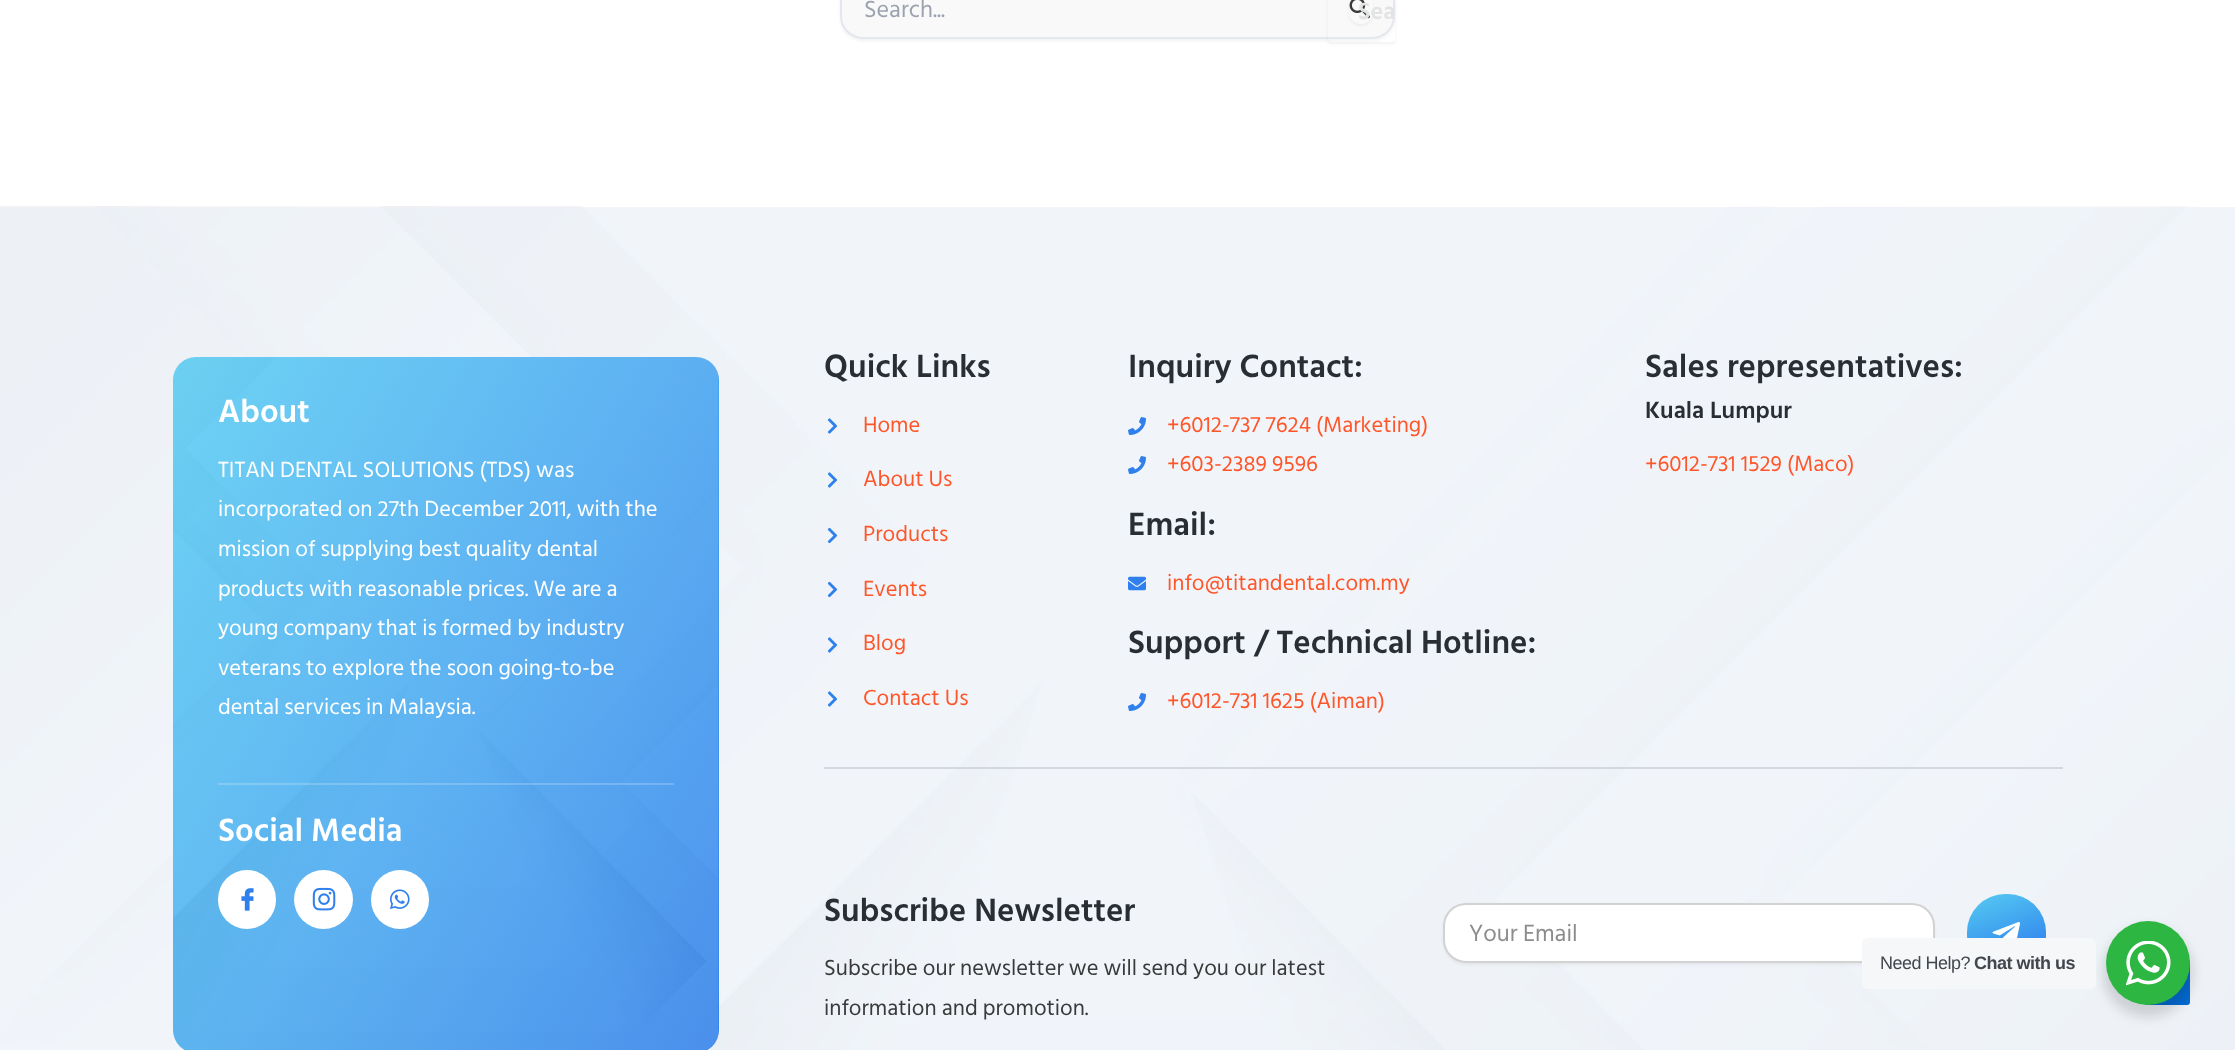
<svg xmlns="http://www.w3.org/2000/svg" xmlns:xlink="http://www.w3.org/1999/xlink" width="2235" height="1050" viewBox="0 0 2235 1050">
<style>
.cls-1{font:24px Hind Siliguri;fill:#9ca3af}
.cls-2{font:600 24px Hind Siliguri;fill:#e2e3e3}
.cls-3{font:600 33px Hind Siliguri;fill:#ffffff}
.cls-4{font:22.5px Hind Siliguri;fill:#ffffff}
.cls-5{font:600 33px Hind Siliguri;fill:#292e35}
.cls-6{font:22.5px Hind Siliguri;fill:#ff5629}
.cls-7{font:600 24px Hind Siliguri;fill:#292e35}
.cls-8{font:22.5px Hind Siliguri;fill:#3a3a3b}
.cls-9{font:24px Hind Siliguri;fill:#8c8c8c}
.cls-10{font:18px Liberation Sans;letter-spacing:-0.5px;fill:#43474e}
.cls-11{font:bold 18px Liberation Sans;letter-spacing:-0.5px;fill:#43474e}
</style>
<defs>
<clipPath id="clip1"><path d="M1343 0H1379V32H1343ZM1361-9C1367.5-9 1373-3.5 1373 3V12C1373 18.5 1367.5 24 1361 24C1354.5 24 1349 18.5 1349 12V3C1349-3.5 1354.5-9 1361-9Z" clip-rule="evenodd"/></clipPath>
<clipPath id="clip2"><path d="M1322 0H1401V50H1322ZM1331-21H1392C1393.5-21 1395-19.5 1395-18V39C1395 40.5 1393.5 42 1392 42H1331C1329.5 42 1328 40.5 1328 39V-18C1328-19.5 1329.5-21 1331-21Z" clip-rule="evenodd"/></clipPath>
<linearGradient id="g1" gradientUnits="userSpaceOnUse" x1="801" y1="910" x2="90" y2="500"><stop offset="0" stop-color="#2f80ed"/><stop offset="1" stop-color="#56ccf2"/></linearGradient>
<linearGradient id="g2" gradientUnits="userSpaceOnUse" x1="2024" y1="982" x2="1989" y2="886"><stop offset="0.2" stop-color="#2f80ed"/><stop offset="1" stop-color="#56ccf2"/></linearGradient>
</defs>
<rect width="100%" height="100%" fill="#ffffff"/>
<rect fill="#000000" fill-opacity="0.05" filter="blur(1.5px)" x="840" y="-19" width="555" height="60" rx="23"/>
<rect fill="#f9f9f9" stroke="#e4e7ed" stroke-width="2" x="841" y="-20" width="553" height="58" rx="22"/>
<g clip-path="url(#clip1)">
<rect fill="#000000" fill-opacity="0.05" filter="blur(1.5px)" x="1349" y="-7" width="24" height="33" rx="12"/>
</g>
<image xlink:href="image0.png" x="1349" y="0" width="21" height="19"/>
<g clip-path="url(#clip2)">
<rect fill="#000000" fill-opacity="0.05" filter="blur(1.5px)" x="1328" y="-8" width="67" height="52" rx="3"/>
</g>
<image xlink:href="image1.png" x="0" y="206" width="2235" height="844"/>
<rect fill="url(#g1)" x="173" y="357" width="546" height="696" rx="23"/>
<image xlink:href="image2.png" x="173" y="357" width="546" height="693"/>
<rect fill="#ffffff" fill-opacity="0.2" x="218" y="783" width="456" height="2"/>
<rect fill="#ffffff" x="218" y="870" width="58" height="59" rx="29"/>
<image xlink:href="image3.png" x="241" y="888" width="13" height="23"/>
<circle fill="#ffffff" cx="323.5" cy="899.5" r="29.5"/>
<image xlink:href="image4.png" x="312" y="887" width="24" height="24"/>
<rect fill="#ffffff" x="371" y="870" width="58" height="59" rx="29"/>
<image xlink:href="image5.png" x="390" y="889" width="20" height="20"/>
<image xlink:href="image6.png" x="827" y="418" width="11" height="16"/>
<image xlink:href="image7.png" x="827" y="472" width="11" height="16"/>
<image xlink:href="image8.png" x="827" y="527" width="11" height="17"/>
<image xlink:href="image9.png" x="827" y="581" width="11" height="17"/>
<image xlink:href="image10.png" x="827" y="637" width="11" height="16"/>
<image xlink:href="image6.png" x="827" y="691" width="11" height="16"/>
<image xlink:href="image11.png" x="1128" y="417" width="18" height="18"/>
<image xlink:href="image11.png" x="1128" y="456" width="18" height="18"/>
<image xlink:href="image12.png" x="1128" y="576" width="18" height="15"/>
<image xlink:href="image11.png" x="1128" y="693" width="18" height="18"/>
<rect fill="#d4d7dd" x="824" y="767" width="1239" height="2"/>
<rect fill="#000000" fill-opacity="0.05" filter="blur(1.5px)" x="1443" y="905" width="492" height="60" rx="23"/>
<rect fill="#ffffff" stroke="#d3d2d2" stroke-width="2" x="1444" y="904" width="490" height="58" rx="22"/>
<rect fill="url(#g2)" x="1967" y="894" width="79" height="80" rx="38"/>
<image xlink:href="image13.png" x="1992" y="922" width="28" height="16"/>
<rect fill="#046bd2" x="2144" y="959" width="46" height="46" rx="3"/>
<rect fill="#000000" fill-opacity="0.14" filter="blur(6px)" x="2103" y="927" width="90" height="90" rx="45"/>
<rect fill="#f5f7f9" x="1862" y="938" width="234" height="51" rx="6"/>
<circle fill="#2db742" cx="2148" cy="963" r="42"/>
<image xlink:href="image14.png" x="2126" y="941" width="45" height="45"/>
<text class="cls-1" x="864" y="17">Search...</text>
<text class="cls-2" x="1358" y="19">Sea</text>
<text class="cls-3" x="218" y="422">About</text>
<text class="cls-4"><tspan x="218" y="477">TITAN DENTAL SOLUTIONS (TDS) was</tspan><tspan x="218" y="516">incorporated on 27th December 2011, with the</tspan><tspan x="218" y="556">mission of supplying best quality dental</tspan><tspan x="218" y="596">products with reasonable prices. We are a</tspan><tspan x="218" y="635">young company that is formed by industry</tspan><tspan x="218" y="675">veterans to explore the soon going-to-be</tspan><tspan x="218" y="714">dental services in Malaysia.</tspan></text>
<text class="cls-3" x="218" y="841">Social Media</text>
<text class="cls-5" x="824" y="377">Quick Links</text>
<text class="cls-6" x="863" y="432">Home</text>
<text class="cls-6" x="863" y="486">About Us</text>
<text class="cls-6" x="863" y="541">Products</text>
<text class="cls-6" x="863" y="596">Events</text>
<text class="cls-6" x="863" y="650">Blog</text>
<text class="cls-6" x="863" y="705">Contact Us</text>
<text class="cls-5" x="1128" y="377">Inquiry Contact:</text>
<text class="cls-6"><tspan x="1167" y="432">+6012-737 7624 (Marketing)</tspan><tspan x="1167" y="471">+603-2389 9596</tspan></text>
<text class="cls-5" x="1128" y="535">Email:</text>
<text class="cls-6" x="1167" y="590">info@titandental.com.my</text>
<text class="cls-5" x="1128" y="653">Support / Technical Hotline:</text>
<text class="cls-6" x="1167" y="708">+6012-731 1625 (Aiman)</text>
<text class="cls-5" x="1645" y="377">Sales representatives:</text>
<text class="cls-7" x="1645" y="418">Kuala Lumpur</text>
<text class="cls-6" x="1645" y="471">+6012-731 1529 (Maco)</text>
<text class="cls-5" x="824" y="921">Subscribe Newsletter</text>
<text class="cls-8"><tspan x="824" y="975">Subscribe our newsletter we will send you our latest</tspan><tspan x="824" y="1015">information and promotion.</tspan></text>
<text class="cls-9" x="1469" y="941">Your Email</text>
<text class="cls-10" x="1880" y="969">Need Help?</text>
<text class="cls-11" x="1974" y="969">Chat with us</text>
</svg>
